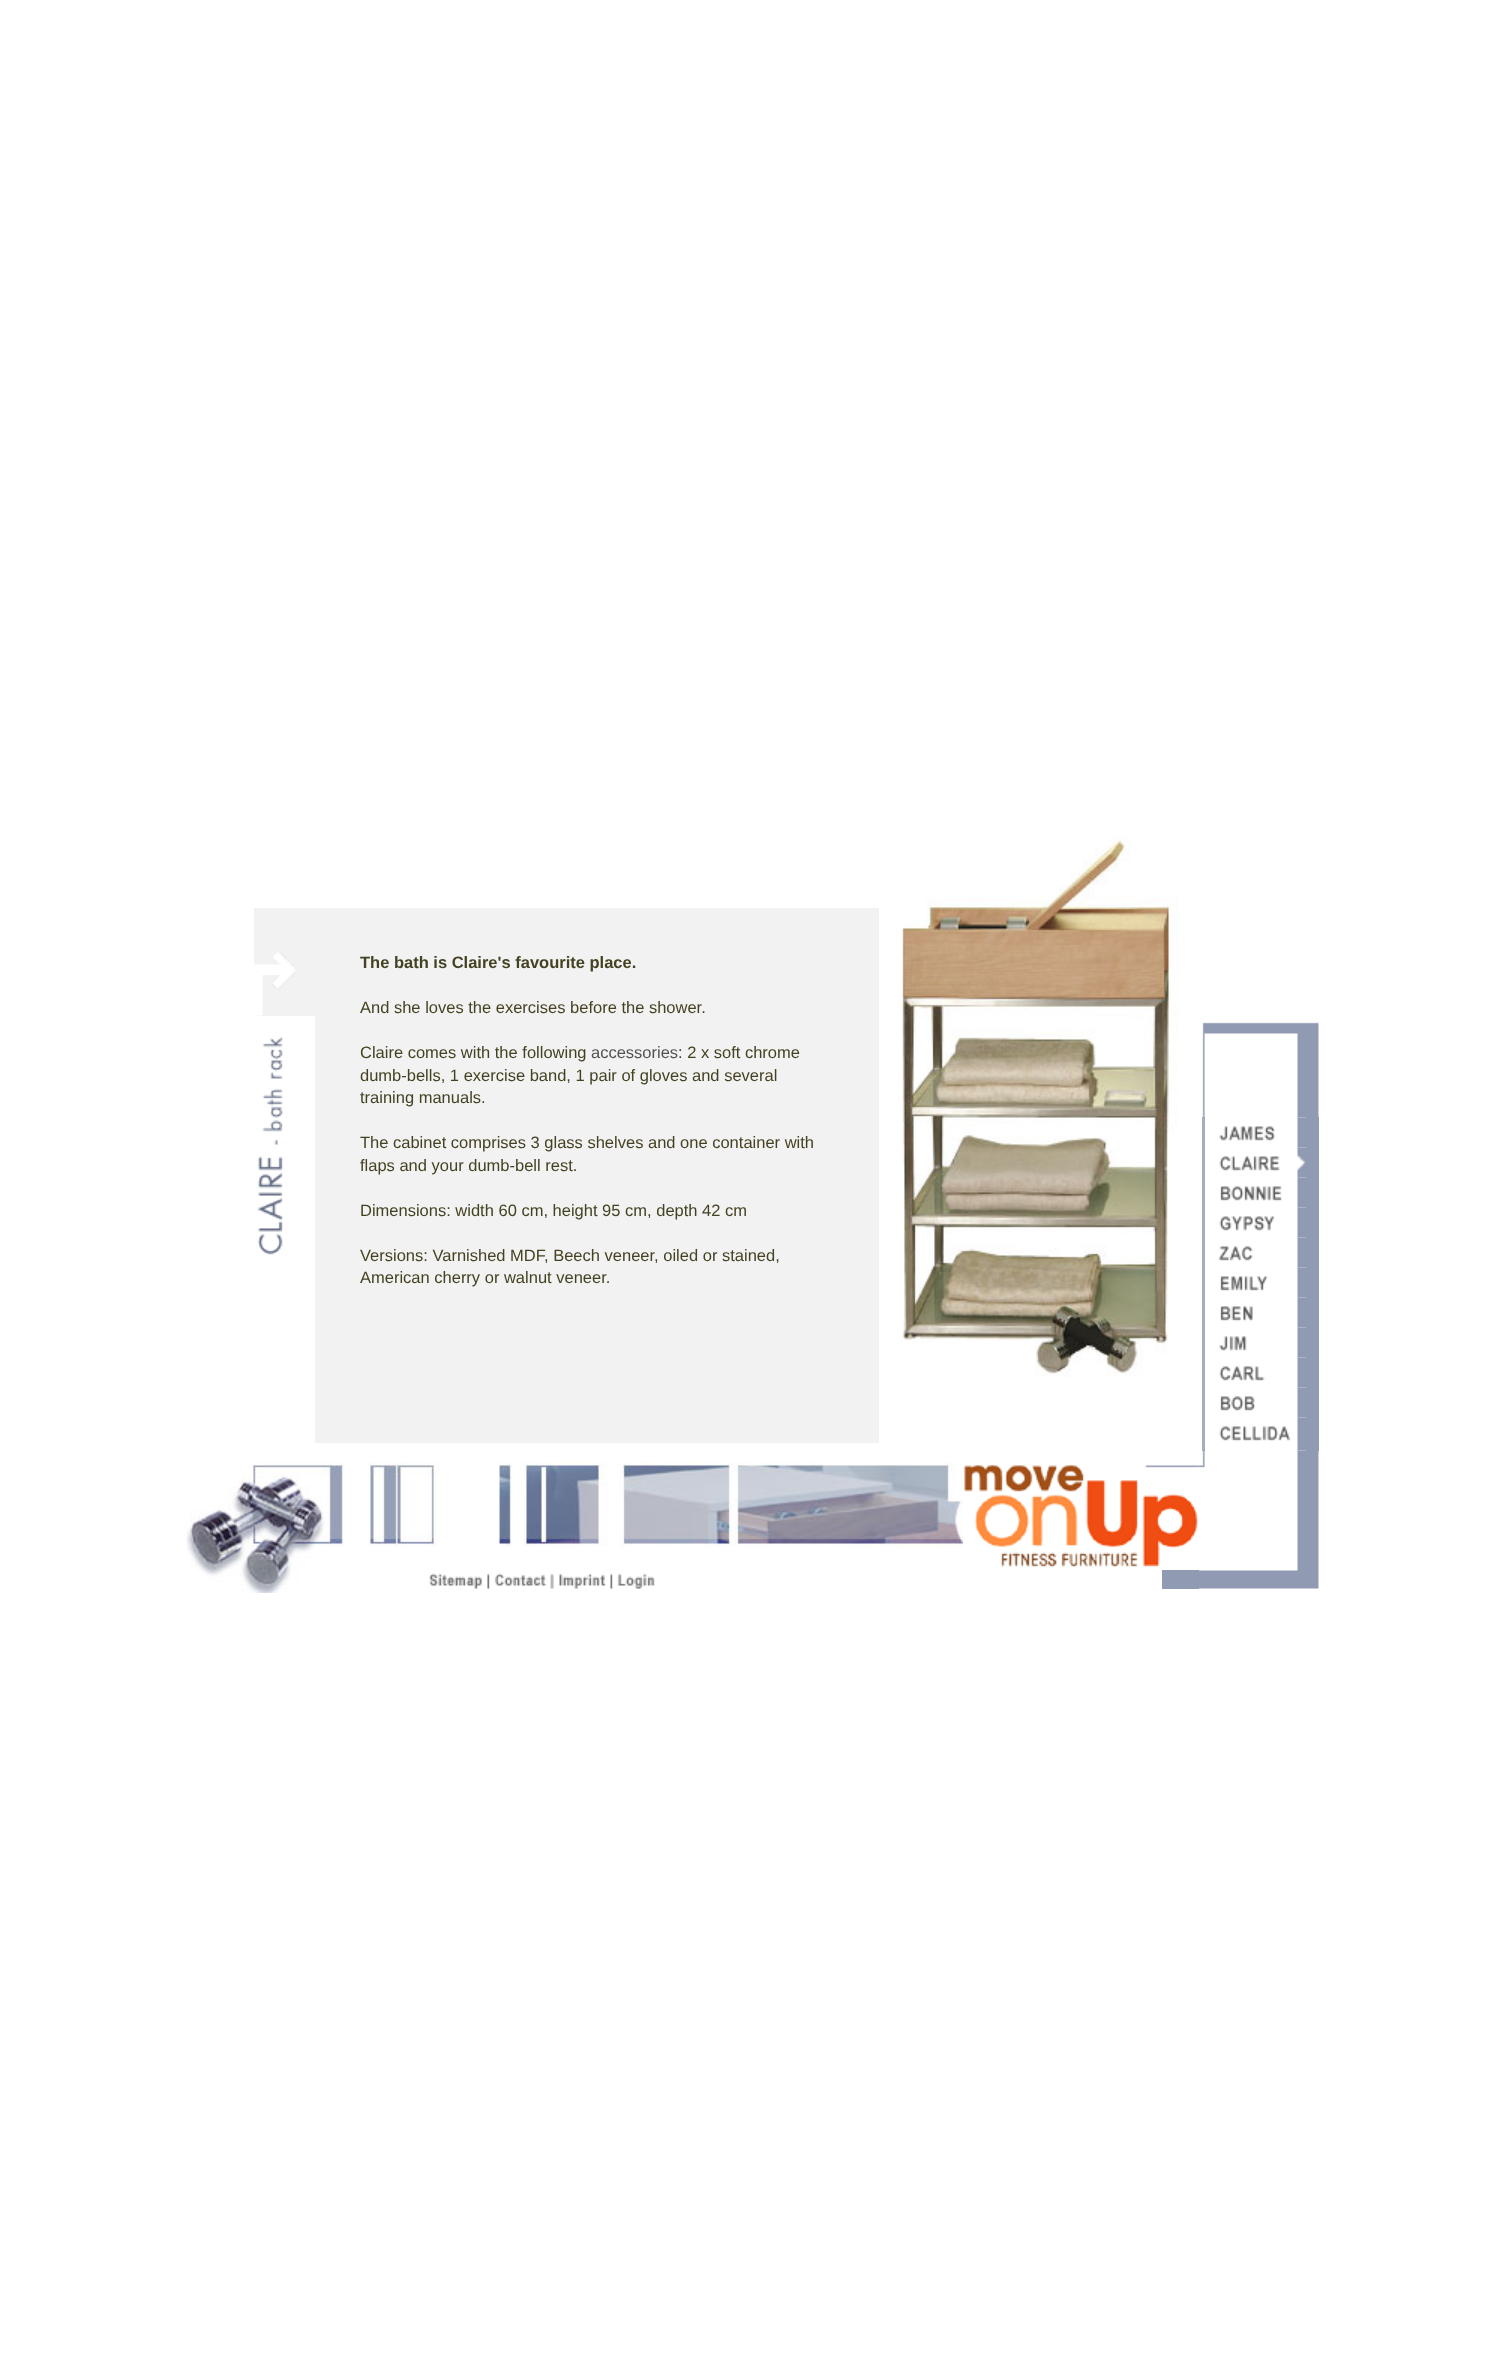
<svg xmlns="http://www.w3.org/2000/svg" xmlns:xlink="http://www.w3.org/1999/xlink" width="1511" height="2373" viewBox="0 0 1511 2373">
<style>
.cls-1{font:bold 16.5px Liberation Sans;fill:#444222}
.cls-2{font:16.5px Liberation Sans;fill:#444222}
.cls-3{font:16.5px Liberation Sans;fill:#525252}
</style>
<rect width="100%" height="100%" fill="#ffffff"/>
<image xlink:href="image0.png" x="256" y="1037" width="27" height="218"/>
<rect fill="#f2f2f2" x="254" y="908" width="61" height="108"/>
<image xlink:href="image1.png" x="254" y="949" width="43" height="67"/>
<rect fill="#f2f2f2" x="315" y="908" width="564" height="535"/>
<image xlink:href="image2.png" x="902" y="837" width="277" height="540"/>
<image xlink:href="image3.png" x="1202" y="1022" width="117" height="96"/>
<rect fill="#909ab3" fill-opacity="0.81" x="1202" y="1117" width="3" height="334"/>
<image xlink:href="image4.png" x="1219" y="1117" width="87" height="31"/>
<rect fill="#919ab3" x="1306" y="1117" width="13" height="334"/>
<image xlink:href="image5.png" x="1219" y="1147" width="87" height="31"/>
<image xlink:href="image6.png" x="1220" y="1177" width="86" height="31"/>
<image xlink:href="image7.png" x="1219" y="1207" width="87" height="31"/>
<image xlink:href="image8.png" x="1219" y="1237" width="87" height="31"/>
<image xlink:href="image9.png" x="1220" y="1267" width="86" height="31"/>
<image xlink:href="image10.png" x="1220" y="1297" width="86" height="31"/>
<image xlink:href="image11.png" x="1219" y="1327" width="87" height="31"/>
<image xlink:href="image12.png" x="1219" y="1357" width="87" height="31"/>
<image xlink:href="image13.png" x="1220" y="1387" width="86" height="31"/>
<image xlink:href="image14.png" x="1219" y="1417" width="87" height="34"/>
<image xlink:href="image15.png" x="186" y="1462" width="158" height="131"/>
<image xlink:href="image16.png" x="343" y="1462" width="620" height="85"/>
<image xlink:href="image17.png" x="964" y="1464" width="235" height="103"/>
<image xlink:href="image18.png" x="1198" y="1450" width="121" height="139"/>
<image xlink:href="image19.png" x="428" y="1573" width="54" height="16"/>
<image xlink:href="image20.png" x="487" y="1573" width="3" height="16"/>
<image xlink:href="image21.png" x="494" y="1573" width="53" height="13"/>
<image xlink:href="image22.png" x="550" y="1573" width="4" height="16"/>
<image xlink:href="image23.png" x="559" y="1573" width="48" height="16"/>
<image xlink:href="image24.png" x="610" y="1573" width="3" height="16"/>
<image xlink:href="image25.png" x="617" y="1573" width="38" height="16"/>
<rect fill="#919ab3" x="1162" y="1570" width="37" height="19"/>
<text class="cls-1" x="360" y="968">The bath is Claire's favourite place.</text>
<text class="cls-2" x="360" y="1013">And she loves the exercises before the shower.</text>
<text class="cls-2" x="360" y="1058">Claire comes with the following</text>
<text class="cls-3" x="591" y="1058">accessories</text>
<text class="cls-2" x="678" y="1058">: 2 x soft chrome</text>
<text class="cls-2"><tspan x="360" y="1081">dumb-bells, 1 exercise band, 1 pair of gloves and several</tspan><tspan x="360" y="1103">training manuals.</tspan></text>
<text class="cls-2"><tspan x="360" y="1148">The cabinet comprises 3 glass shelves and one container with</tspan><tspan x="360" y="1171">flaps and your dumb-bell rest.</tspan></text>
<text class="cls-2" x="360" y="1216">Dimensions: width 60 cm, height 95 cm, depth 42 cm</text>
<text class="cls-2"><tspan x="360" y="1261">Versions: Varnished MDF, Beech veneer, oiled or stained,</tspan><tspan x="360" y="1283">American cherry or walnut veneer.</tspan></text>
</svg>
